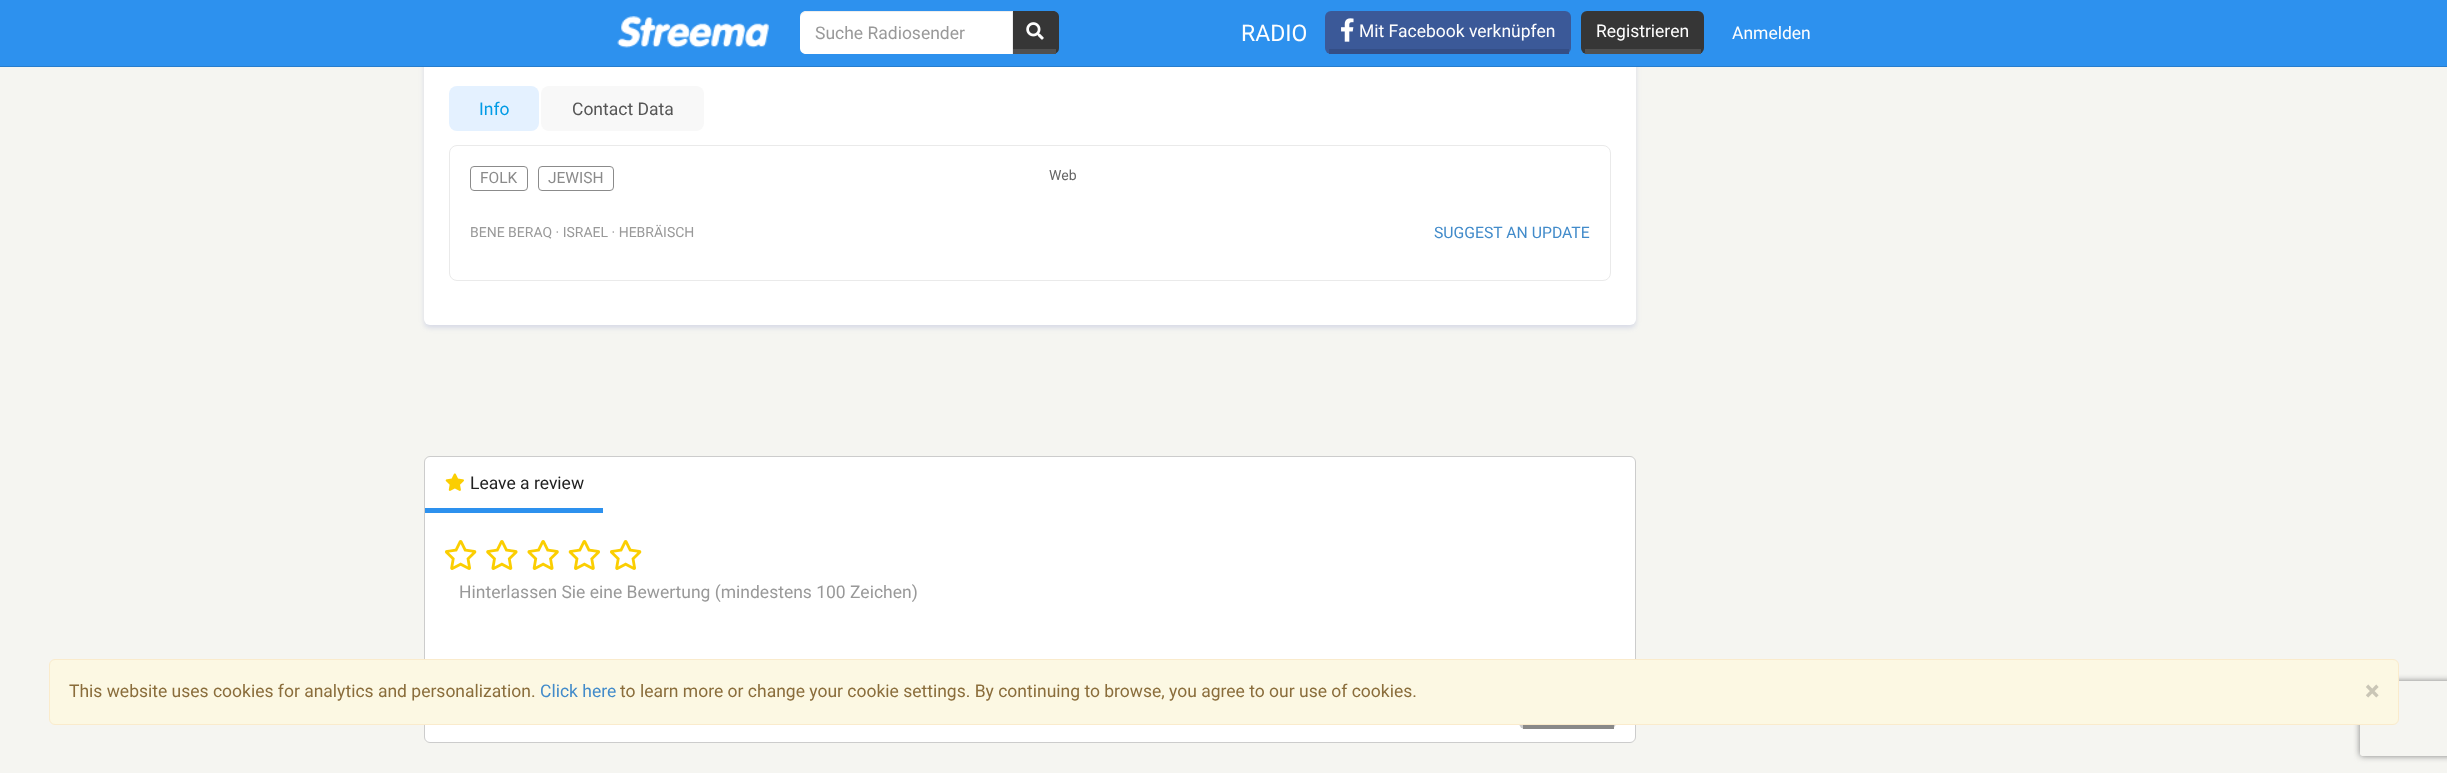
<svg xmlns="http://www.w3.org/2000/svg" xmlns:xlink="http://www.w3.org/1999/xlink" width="2447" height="773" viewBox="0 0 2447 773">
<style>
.cls-1{font:17.5px Roboto;fill:#999999}
.cls-2{font:23px Roboto;fill:#fefefe}
.cls-3{font:17.5px Roboto;fill:#fefefe}
.cls-4{font:17.5px Roboto;fill:#009be5}
.cls-5{font:17.5px Roboto;fill:#555555}
.cls-6{font:15.5px Roboto;fill:#8b8b8b}
.cls-7{font:14px Roboto;fill:#666666}
.cls-8{font:14px Roboto;fill:#999999}
.cls-9{font:15.75px Roboto;fill:#428bca}
.cls-10{font:17.5px Roboto;fill:#222222}
.cls-11{font:17.5px Roboto;fill:#8a6d3b}
.cls-12{font:17.5px Roboto;fill:#428bca}
.cls-13{font:bold 26px Roboto;fill:#cac6b6}
</style>
<defs>
<clipPath id="clip1"><path d="M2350 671H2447V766H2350ZM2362.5 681H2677.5C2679 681 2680 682 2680 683.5V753.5C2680 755 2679 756 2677.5 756H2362.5C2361 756 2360 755 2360 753.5V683.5C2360 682 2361 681 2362.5 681Z" clip-rule="evenodd"/></clipPath>
</defs>
<rect width="100%" height="100%" fill="#f5f5f1"/>
<rect fill="#7f8bc9" fill-opacity="0.25" filter="blur(2.5px)" x="424" y="-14" width="1212" height="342" rx="6"/>
<rect fill="#ffffff" x="424" y="-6" width="1212" height="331" rx="6"/>
<rect fill="#2d91ee" x="0" y="0" width="2447" height="66"/>
<rect fill="#277dcd" x="0" y="66" width="2447" height="1"/>
<image xlink:href="image0.png" x="617" y="16" width="152" height="32"/>
<path fill="#363636" d="M1011 11H1053C1056.5 11 1059 13.5 1059 17V48C1059 51.5 1056.5 54 1053 54H1011Z"/>
<rect fill="#505050" x="1011" y="49" width="45" height="5"/>
<path fill="#ffffff" d="M806 11H1013V54H806C802.5 54 800 51.5 800 48V17C800 13.5 802.5 11 806 11Z"/>
<path fill="#000000" fill-opacity="0.07" d="M806 12H1012V54H1013V11H806C803 11 800 14 800 17V19C800 15 803 12 806 12Z"/>
<image xlink:href="image1.png" x="1026" y="22" width="18" height="18"/>
<rect fill="#3b5998" x="1325" y="11" width="246" height="43" rx="6"/>
<rect fill="#344e86" x="1329" y="49" width="240" height="5"/>
<image xlink:href="image2.png" x="1341" y="18" width="13" height="24"/>
<rect fill="#363636" x="1581" y="11" width="123" height="43" rx="6"/>
<rect fill="#505050" x="1585" y="49" width="116" height="5"/>
<rect fill="#e4f1ff" x="449" y="86" width="90" height="45" rx="8"/>
<rect fill="#f8f8f8" x="541" y="86" width="163" height="45" rx="8"/>
<rect fill="none" stroke="#eaeaea" x="449.5" y="145.5" width="1161" height="135" rx="7.5"/>
<rect fill="none" stroke="#8b8b8b" x="470.5" y="166.5" width="57" height="24" rx="3.5"/>
<rect fill="none" stroke="#8b8b8b" x="538.5" y="166.5" width="75" height="24" rx="3.5"/>
<rect fill="#ffffff" stroke="#cccccc" x="424.5" y="456.5" width="1211" height="286" rx="5.5"/>
<rect fill="#2d91ee" x="425" y="508" width="178" height="5"/>
<image xlink:href="image3.png" x="445" y="473" width="19" height="18"/>
<image xlink:href="image4.png" x="445" y="540" width="32" height="30"/>
<image xlink:href="image5.png" x="486" y="540" width="32" height="30"/>
<image xlink:href="image6.png" x="527" y="540" width="32" height="30"/>
<image xlink:href="image7.png" x="568" y="540" width="32" height="30"/>
<image xlink:href="image4.png" x="610" y="540" width="32" height="30"/>
<rect fill="#cccccc" x="1519" y="680" width="97" height="49" rx="6"/>
<rect fill="#898989" x="1523" y="725" width="91" height="4"/>
<g clip-path="url(#clip1)">
<rect fill="#808080" filter="blur(3px)" x="2360" y="681" width="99" height="75" rx="2.5"/>
</g>
<rect fill="#fcf8e3" stroke="#faebcc" x="49.5" y="659.5" width="2349" height="65" rx="5.5"/>
<text class="cls-1" x="815" y="39">Suche Radiosender</text>
<text class="cls-2" x="1241" y="41">RADIO</text>
<text class="cls-3" x="1359" y="37">Mit Facebook verknüpfen</text>
<text class="cls-3" x="1596" y="37">Registrieren</text>
<text class="cls-3" x="1732" y="39">Anmelden</text>
<text class="cls-4" x="479" y="115">Info</text>
<text class="cls-5" x="572" y="115">Contact Data</text>
<text class="cls-6" x="480" y="183">FOLK</text>
<text class="cls-6" x="548" y="183">JEWISH</text>
<text class="cls-7" x="1049" y="180">Web</text>
<text class="cls-8" x="470" y="237">BENE BERAQ · ISRAEL · HEBRÄISCH</text>
<text class="cls-9" x="1434" y="238">SUGGEST AN UPDATE</text>
<text class="cls-10" x="470" y="489">Leave a review</text>
<text class="cls-1" x="459" y="598">Hinterlassen Sie eine Bewertung (mindestens 100 Zeichen)</text>
<text class="cls-11" x="69" y="697">This website uses cookies for analytics and personalization.</text>
<text class="cls-12" x="540" y="697">Click here</text>
<text class="cls-11" x="620" y="697">to learn more or change your cookie settings. By continuing to browse, you agree to our use of cookies.</text>
<text class="cls-13" x="2365" y="700">×</text>
</svg>
